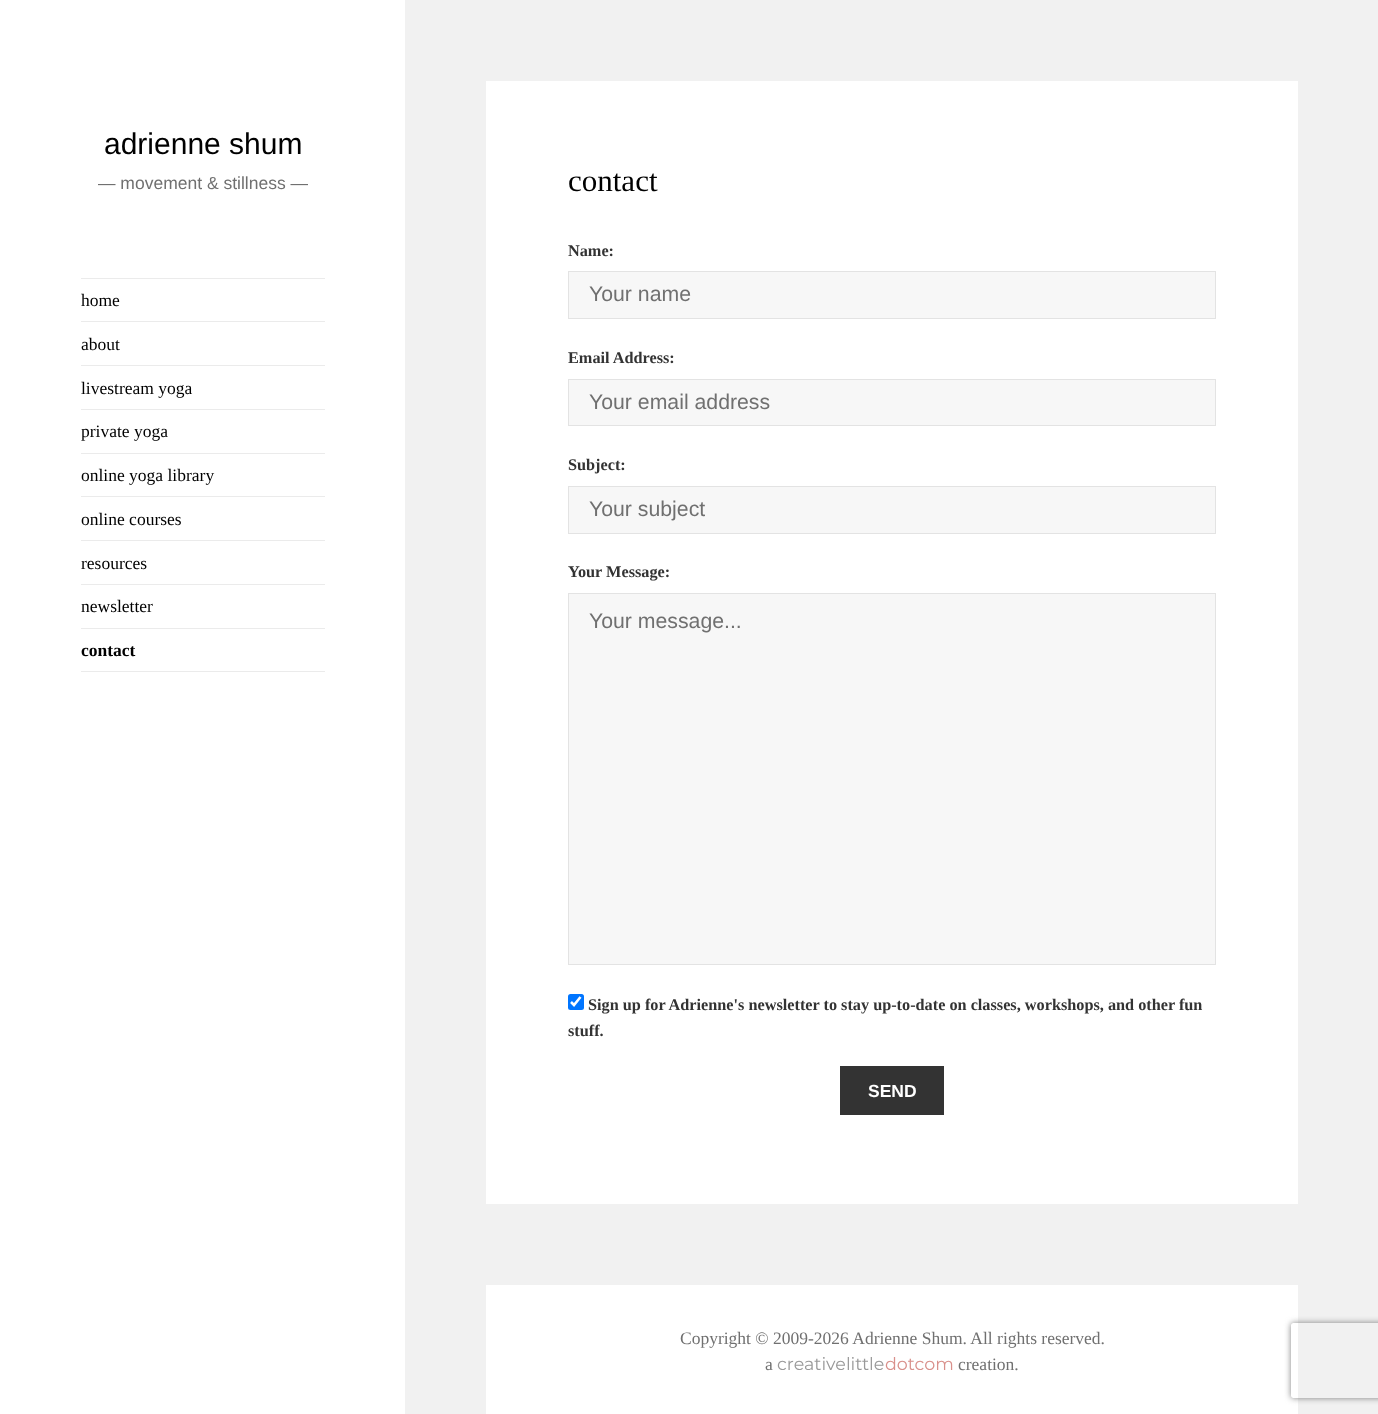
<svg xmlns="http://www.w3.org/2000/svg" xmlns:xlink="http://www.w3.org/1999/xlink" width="1378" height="1414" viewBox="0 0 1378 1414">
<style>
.cls-1{font:30px Liberation Sans;fill:#000000}
.cls-2{font:17.5px Liberation Sans;fill:#707070}
.cls-3{font:17.5px Liberation Serif;fill:#000000}
.cls-4{font:bold 17.5px Liberation Serif;fill:#000000}
.cls-5{font:31px Liberation Serif;fill:#000000}
.cls-6{font:bold 16.25px Liberation Serif;fill:#333333}
.cls-7{font:21.25px Liberation Sans;fill:#707070}
.cls-8{font:bold 17.5px Liberation Sans;fill:#ffffff}
.cls-9{font:17.5px Liberation Serif;fill:#707070}
.cls-10{font:17.5px Montserrat;fill:#999999}
.cls-11{font:17.5px Montserrat;fill:#d9908b}
</style>
<defs>
<clipPath id="clip1"><path d="M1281 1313H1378V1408H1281ZM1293.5 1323H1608.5C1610 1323 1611 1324 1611 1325.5V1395.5C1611 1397 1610 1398 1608.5 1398H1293.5C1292 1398 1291 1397 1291 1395.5V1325.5C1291 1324 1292 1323 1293.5 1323Z" clip-rule="evenodd"/></clipPath>
</defs>
<rect width="100%" height="100%" fill="#f1f1f1"/>
<rect fill="#ffffff" x="0" y="0" width="405" height="1414"/>
<rect fill="#ebebeb" x="81" y="278" width="244" height="1"/>
<rect fill="#ebebeb" x="81" y="671" width="244" height="1"/>
<rect fill="#ebebeb" x="81" y="321" width="244" height="1"/>
<rect fill="#ebebeb" x="81" y="365" width="244" height="1"/>
<rect fill="#ebebeb" x="81" y="409" width="244" height="1"/>
<rect fill="#ebebeb" x="81" y="453" width="244" height="1"/>
<rect fill="#ebebeb" x="81" y="496" width="244" height="1"/>
<rect fill="#ebebeb" x="81" y="540" width="244" height="1"/>
<rect fill="#ebebeb" x="81" y="584" width="244" height="1"/>
<rect fill="#ebebeb" x="81" y="628" width="244" height="1"/>
<rect fill="#ffffff" x="486" y="81" width="812" height="1123"/>
<rect fill="#f7f7f7" stroke="#e3e3e3" x="568.5" y="271.5" width="647" height="47"/>
<rect fill="#f7f7f7" stroke="#e3e3e3" x="568.5" y="379.5" width="647" height="46"/>
<rect fill="#f7f7f7" stroke="#e3e3e3" x="568.5" y="486.5" width="647" height="47"/>
<rect fill="#f7f7f7" stroke="#e3e3e3" x="568.5" y="593.5" width="647" height="371"/>
<rect fill="#0075ff" x="568" y="994" width="16" height="16" rx="2.5"/>
<path fill="none" stroke="#ffffff" stroke-width="2.6" d="M571 1002L574 1005L580.5 997"/>
<rect fill="#333333" x="840" y="1066" width="104" height="49"/>
<rect fill="#ffffff" x="486" y="1285" width="812" height="129"/>
<g clip-path="url(#clip1)">
<rect fill="#808080" filter="blur(3px)" x="1291" y="1323" width="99" height="75" rx="2.5"/>
</g>
<text class="cls-1" x="104" y="154">adrienne shum</text>
<text class="cls-2" x="98" y="189">— movement &amp; stillness —</text>
<text class="cls-3" x="81" y="306">home</text>
<text class="cls-3" x="81" y="350">about</text>
<text class="cls-3" x="81" y="394">livestream yoga</text>
<text class="cls-3" x="81" y="437">private yoga</text>
<text class="cls-3" x="81" y="481">online yoga library</text>
<text class="cls-3" x="81" y="525">online courses</text>
<text class="cls-3" x="81" y="569">resources</text>
<text class="cls-3" x="81" y="612">newsletter</text>
<text class="cls-4" x="81" y="656">contact</text>
<text class="cls-5" x="568" y="191">contact</text>
<text class="cls-6" x="568" y="256">Name:</text>
<text class="cls-7" x="589" y="301">Your name</text>
<text class="cls-6" x="568" y="363">Email Address:</text>
<text class="cls-7" x="589" y="409">Your email address</text>
<text class="cls-6" x="568" y="470">Subject:</text>
<text class="cls-7" x="589" y="516">Your subject</text>
<text class="cls-6" x="568" y="577">Your Message:</text>
<text class="cls-7" x="589" y="628">Your message...</text>
<text class="cls-6" x="588" y="1010">Sign up for Adrienne's newsletter to stay up-to-date on classes, workshops, and other fun</text>
<text class="cls-6" x="568" y="1036">stuff.</text>
<text class="cls-8" x="868" y="1097">SEND</text>
<text class="cls-9" x="680" y="1344">Copyright © 2009-2026 Adrienne Shum. All rights reserved.</text>
<text class="cls-9" x="765" y="1370">a</text>
<text class="cls-10" x="777" y="1370">creativelittle</text>
<text class="cls-11" x="885" y="1370">dotcom</text>
<text class="cls-9" x="958" y="1370">creation.</text>
</svg>
